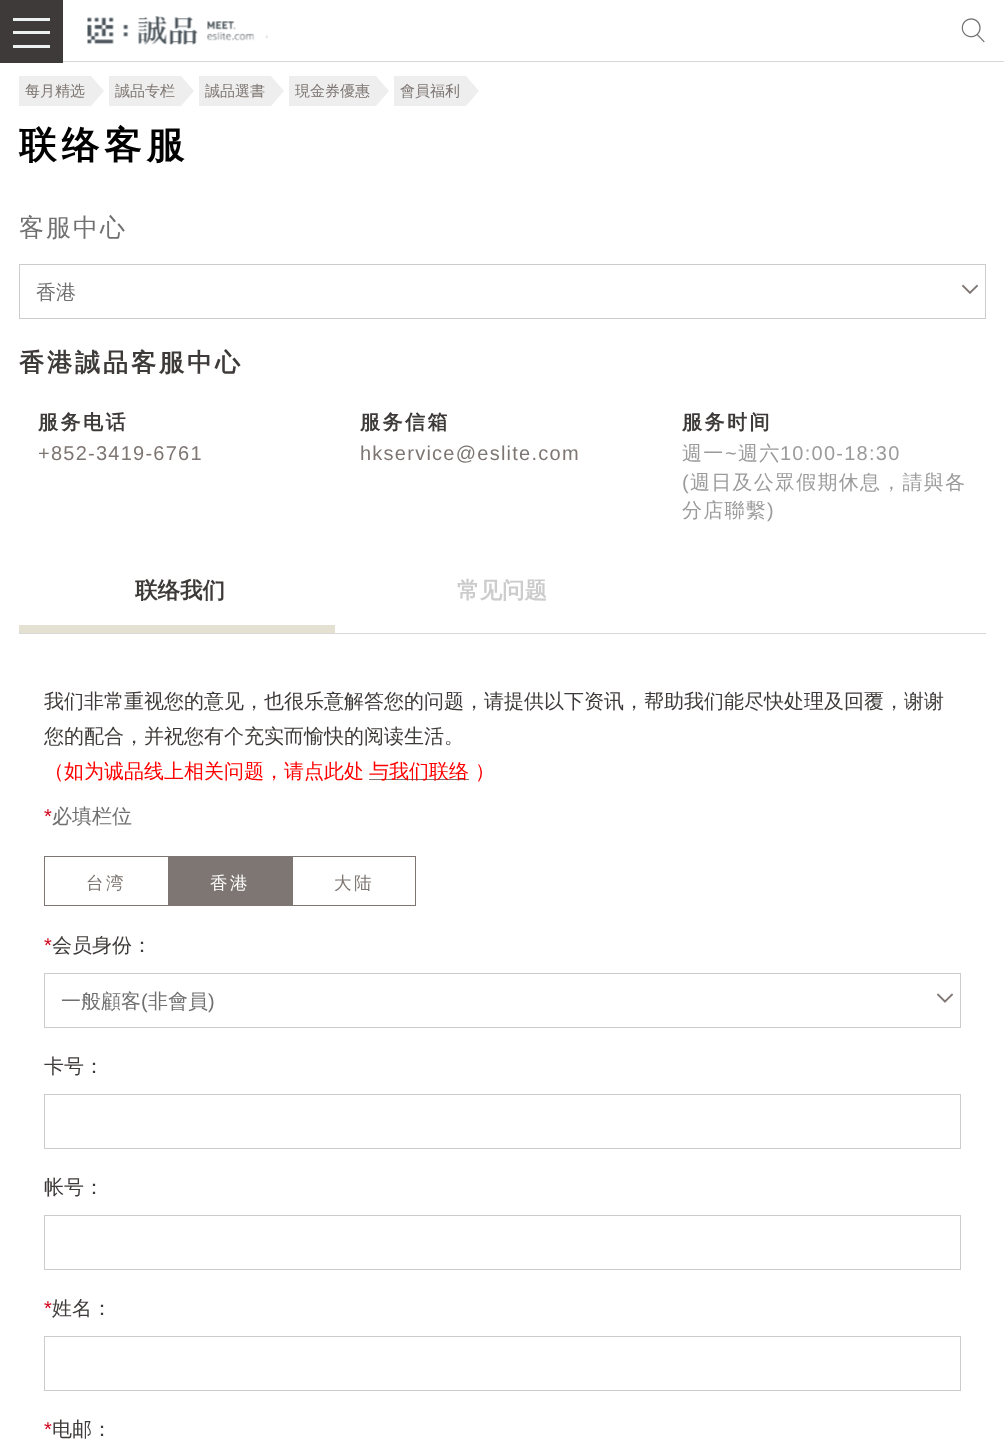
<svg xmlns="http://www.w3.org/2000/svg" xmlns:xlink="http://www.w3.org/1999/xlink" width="1004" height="1449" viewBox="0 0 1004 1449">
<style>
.cls-1{font:500 15px WenQuanYi Zen Hei;fill:#7e7672}
.cls-2{font:bold 37.5px WenQuanYi Zen Hei;letter-spacing:5px;fill:#000000}
.cls-3{font:500 25px WenQuanYi Zen Hei;letter-spacing:2px;fill:#717071}
.cls-4{font:500 20px WenQuanYi Zen Hei;fill:#717071}
.cls-5{font:bold 25px WenQuanYi Zen Hei;letter-spacing:3px;fill:#3e3a39}
.cls-6{font:bold 20px WenQuanYi Zen Hei;letter-spacing:2.5px;fill:#3e3a39}
.cls-7{font:20px Liberation Sans;letter-spacing:1.25px;fill:#7e7672}
.cls-8{font:500 20px WenQuanYi Zen Hei;letter-spacing:1.25px;fill:#9b9b9b}
.cls-9{font:20px Liberation Sans;letter-spacing:1.25px;fill:#9b9b9b}
.cls-10{font:bold 22.5px WenQuanYi Zen Hei;fill:#3e3a39}
.cls-11{font:bold 22.5px WenQuanYi Zen Hei;fill:#cccccc}
.cls-12{font:500 20px WenQuanYi Zen Hei;fill:#3e3a39}
.cls-13{font:500 20px WenQuanYi Zen Hei;fill:#ff0000}
.cls-14{font:20px Liberation Sans;fill:#d0011b}
.cls-15{font:500 17.5px WenQuanYi Zen Hei;letter-spacing:2.5px;fill:#7e7672}
.cls-16{font:500 17.5px WenQuanYi Zen Hei;letter-spacing:2.5px;fill:#ffffff}
.cls-17{font:20px Liberation Sans;fill:#717071}
</style>
<rect width="100%" height="100%" fill="#ffffff"/>
<rect fill="#d8d8d8" x="63" y="61" width="941" height="1"/>
<rect fill="#3e3a39" x="0" y="0" width="63" height="63"/>
<rect fill="#ecf0f1" x="13" y="18" width="37" height="3"/>
<rect fill="#ecf0f1" x="13" y="31" width="37" height="3"/>
<rect fill="#ecf0f1" x="13" y="45" width="37" height="3"/>
<image xlink:href="image0.png" x="87" y="16" width="168" height="29"/>
<image xlink:href="image1.png" x="265" y="35" width="3" height="4"/>
<image xlink:href="image2.png" x="961" y="18" width="24" height="25"/>
<rect fill="#eeeeee" x="19" y="76" width="72" height="30"/>
<path fill="#eeeeee" d="M91 106V76L104 91Z"/>
<rect fill="#eeeeee" x="109" y="76" width="72" height="30"/>
<path fill="#eeeeee" d="M181 106V76L194 91Z"/>
<rect fill="#eeeeee" x="199" y="76" width="72" height="30"/>
<path fill="#eeeeee" d="M271 106V76L284 91Z"/>
<rect fill="#eeeeee" x="289" y="76" width="87" height="30"/>
<path fill="#eeeeee" d="M376 106V76L389 91Z"/>
<rect fill="#eeeeee" x="394" y="76" width="72" height="30"/>
<path fill="#eeeeee" d="M466 106V76L479 91Z"/>
<rect fill="none" stroke="#cccccc" x="19.5" y="264.5" width="966" height="54"/>
<image xlink:href="image3.png" x="961" y="284" width="18" height="10"/>
<rect fill="#d8d8d8" x="19" y="633" width="967" height="1"/>
<rect fill="#e4e0d2" x="19" y="625" width="316" height="8"/>
<rect fill="#7e7672" x="369" y="779" width="100" height="1"/>
<rect fill="none" stroke="#7e7672" x="44.5" y="856.5" width="124" height="49"/>
<rect fill="#7e7672" x="169" y="856" width="124" height="50"/>
<rect fill="none" stroke="#7e7672" x="291.5" y="856.5" width="124" height="49"/>
<rect fill="none" stroke="#cccccc" x="44.5" y="973.5" width="916" height="54"/>
<image xlink:href="image4.png" x="936" y="993" width="18" height="10"/>
<rect fill="none" stroke="#cccccc" x="44.5" y="1094.5" width="916" height="54"/>
<rect fill="none" stroke="#cccccc" x="44.5" y="1215.5" width="916" height="54"/>
<rect fill="none" stroke="#cccccc" x="44.5" y="1336.5" width="916" height="54"/>
<text class="cls-1" x="25" y="96">每月精选</text>
<text class="cls-1" x="115" y="96">誠品专栏</text>
<text class="cls-1" x="205" y="96">誠品選書</text>
<text class="cls-1" x="295" y="96">現金券優惠</text>
<text class="cls-1" x="400" y="96">會員福利</text>
<text class="cls-2" x="19" y="158">联络客服</text>
<text class="cls-3" x="19" y="236">客服中心</text>
<text class="cls-4" x="36" y="299">香港</text>
<text class="cls-5" x="19" y="371">香港誠品客服中心</text>
<text class="cls-6" x="38" y="429">服务电话</text>
<text class="cls-7" x="38" y="460">+852-3419-6761</text>
<text class="cls-6" x="360" y="429">服务信箱</text>
<text class="cls-7" x="360" y="460">hkservice@eslite.com</text>
<text class="cls-6" x="682" y="429">服务时间</text>
<text class="cls-8" x="682" y="460">週一</text>
<text class="cls-9" x="725" y="460">~</text>
<text class="cls-8" x="738" y="460">週六</text>
<text class="cls-9" x="780" y="460">10:00-18:30</text>
<text class="cls-9" x="682" y="489">(</text>
<text class="cls-8" x="690" y="489">週日及公眾假期休息，請與各</text>
<text class="cls-8" x="682" y="517">分店聯繫</text>
<text class="cls-9" x="767" y="517">)</text>
<text class="cls-10" x="135" y="598">联络我们</text>
<text class="cls-11" x="457" y="598">常见问题</text>
<text class="cls-12"><tspan x="44" y="708">我们非常重视您的意见，也很乐意解答您的问题，请提供以下资讯，帮助我们能尽快处理及回覆，谢谢</tspan><tspan x="44" y="743">您的配合，并祝您有个充实而愉快的阅读生活。</tspan></text>
<text class="cls-13" x="44" y="778">（如为诚品线上相关问题，请点此处</text>
<text class="cls-13" x="369" y="778">与我们联络</text>
<text class="cls-13" x="475" y="778">）</text>
<text class="cls-14" x="44" y="823">*</text>
<text class="cls-4" x="52" y="823">必填栏位</text>
<text class="cls-15" x="86" y="889">台湾</text>
<text class="cls-16" x="210" y="889">香港</text>
<text class="cls-15" x="334" y="889">大陆</text>
<text class="cls-14" x="44" y="952">*</text>
<text class="cls-12" x="52" y="952">会员身份：</text>
<text class="cls-4" x="61" y="1008">一般顧客</text>
<text class="cls-17" x="141" y="1008">(</text>
<text class="cls-4" x="148" y="1008">非會員</text>
<text class="cls-17" x="208" y="1008">)</text>
<text class="cls-12" x="44" y="1073">卡号：</text>
<text class="cls-12" x="44" y="1194">帐号：</text>
<text class="cls-14" x="44" y="1315">*</text>
<text class="cls-12" x="52" y="1315">姓名：</text>
<text class="cls-14" x="44" y="1436">*</text>
<text class="cls-12" x="52" y="1436">电邮：</text>
</svg>
